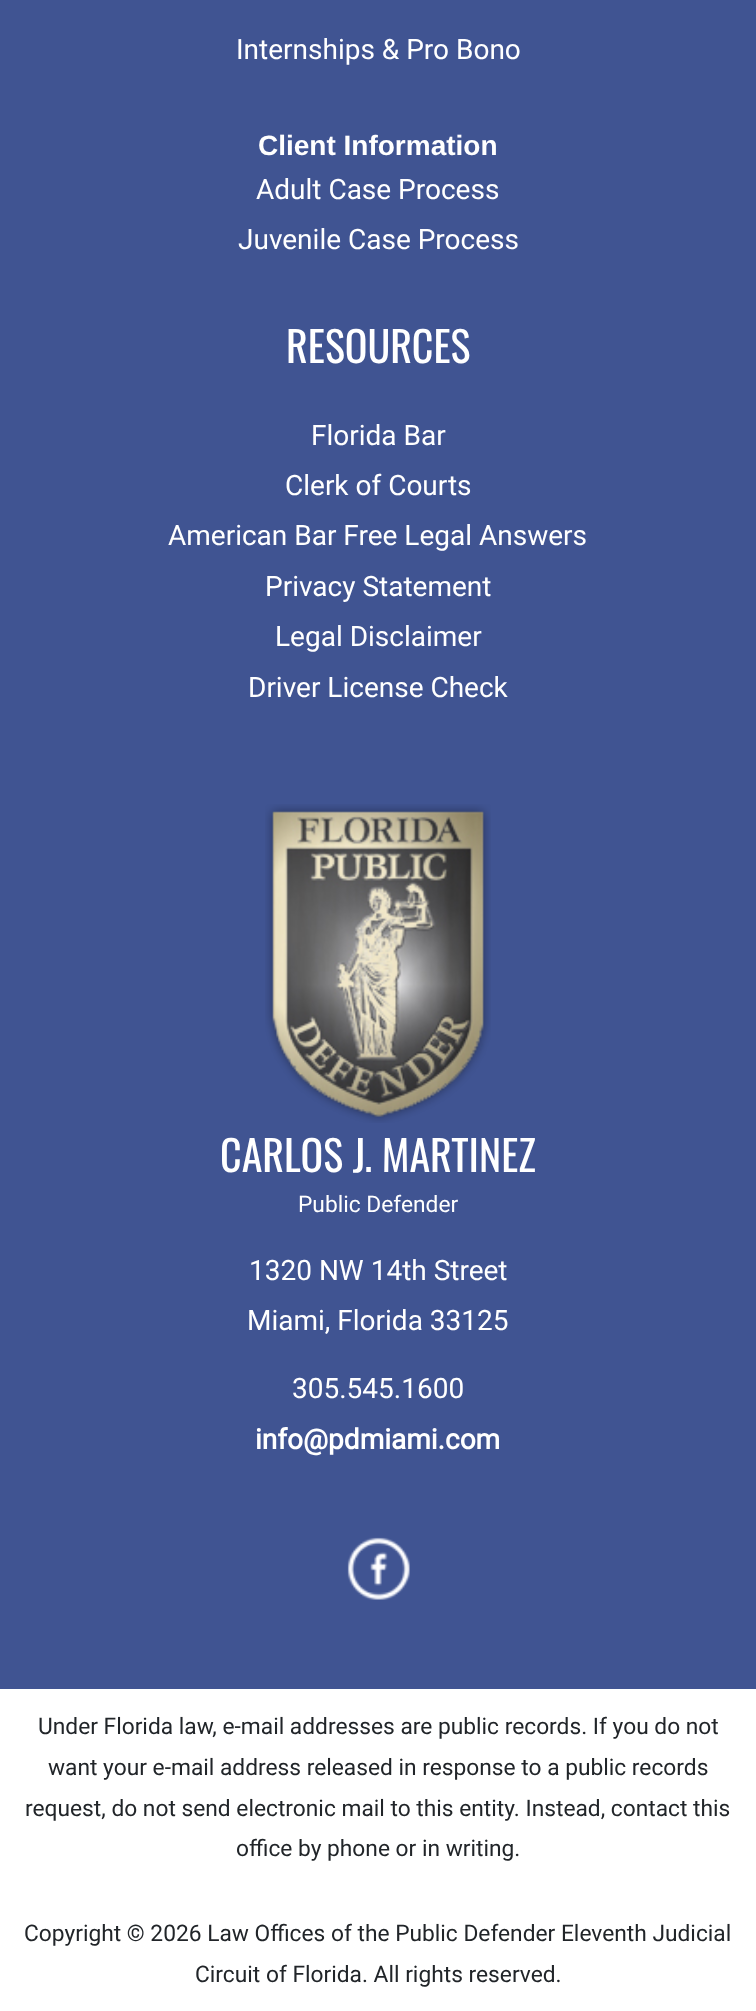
<svg xmlns="http://www.w3.org/2000/svg" xmlns:xlink="http://www.w3.org/1999/xlink" width="756" height="2011" viewBox="0 0 756 2011">
<style>
.cls-1{font:28px Roboto;fill:#ffffff}
.cls-2{font:bold 28px Liberation Sans;fill:#ffffff}
.cls-3{font:42px Oswald;fill:#ffffff}
.cls-4{font:22.75px Roboto;fill:#ffffff}
.cls-5{font:bold 28px Roboto;fill:#ffffff}
.cls-6{font:22.75px Roboto;fill:#212529}
</style>
<rect width="100%" height="100%" fill="#ffffff"/>
<rect fill="#405492" x="0" y="0" width="756" height="1689"/>
<image xlink:href="image0.png" x="265" y="804" width="226" height="319"/>
<image xlink:href="image1.png" x="347" y="1537" width="63" height="63"/>
<text class="cls-1" x="236" y="59">Internships &amp; Pro Bono</text>
<text class="cls-2" x="258" y="155">Client Information</text>
<text class="cls-1" x="256" y="199">Adult Case Process</text>
<text class="cls-1" x="238" y="249">Juvenile Case Process</text>
<text class="cls-3" x="286" y="363">RESOURCES</text>
<text class="cls-1" x="311" y="445">Florida Bar</text>
<text class="cls-1" x="285" y="495">Clerk of Courts</text>
<text class="cls-1" x="168" y="545">American Bar Free Legal Answers</text>
<text class="cls-1" x="265" y="596">Privacy Statement</text>
<text class="cls-1" x="275" y="646">Legal Disclaimer</text>
<text class="cls-1" x="248" y="697">Driver License Check</text>
<text class="cls-3" x="220" y="1172">CARLOS J. MARTINEZ</text>
<text class="cls-4" x="298" y="1212">Public Defender</text>
<text class="cls-1" x="249" y="1280">1320 NW 14th Street</text>
<text class="cls-1" x="247" y="1330">Miami, Florida 33125</text>
<text class="cls-1" x="292" y="1398">305.545.1600</text>
<text class="cls-5" x="255" y="1449">info@pdmiami.com</text>
<text class="cls-6" x="38" y="1734">Under Florida law, e-mail addresses are public records. If you do not</text>
<text class="cls-6" x="48" y="1775">want your e-mail address released in response to a public records</text>
<text class="cls-6" x="25" y="1816">request, do not send electronic mail to this entity. Instead, contact this</text>
<text class="cls-6" x="236" y="1856">office by phone or in writing.</text>
<text class="cls-6" x="24" y="1941">Copyright © 2026 Law Offices of the Public Defender Eleventh Judicial</text>
<text class="cls-6" x="195" y="1982">Circuit of Florida. All rights reserved.</text>
</svg>
